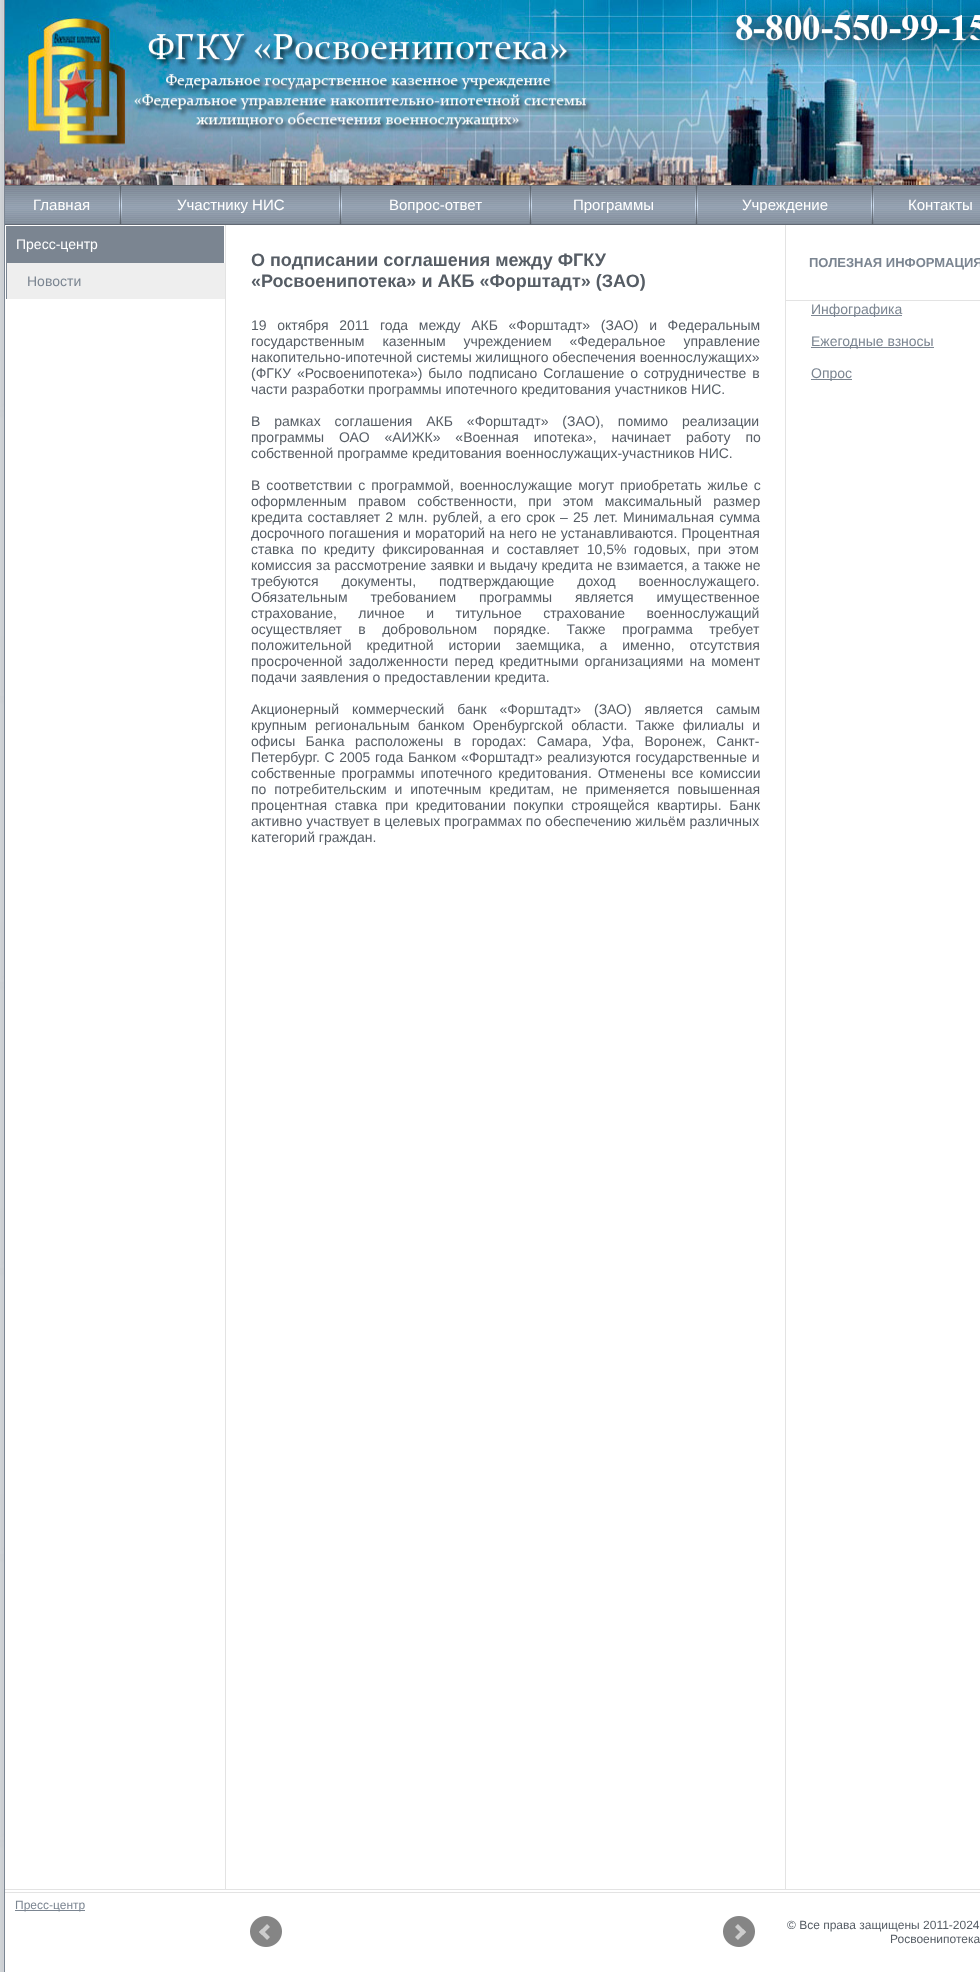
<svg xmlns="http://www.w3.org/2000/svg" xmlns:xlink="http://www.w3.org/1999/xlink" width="980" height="1972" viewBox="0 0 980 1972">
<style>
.cls-1{font:15px Liberation Sans;fill:#ffffff}
.cls-2{font:14px Liberation Sans;fill:#ffffff}
.cls-3{font:14px Liberation Sans;fill:#7b8591}
.cls-4{font:bold 18px Liberation Sans;fill:#565d65}
.cls-5{font:14px Liberation Sans;fill:#565d65}
.cls-6{font:bold 13px Liberation Sans;fill:#7b8591}
.cls-7{font:12px Liberation Sans;fill:#7b8591}
.cls-8{font:12px Liberation Sans;fill:#565d65}
</style>
<rect width="100%" height="100%" fill="#ffffff"/>
<image xlink:href="image0.png" x="0" y="43" width="4" height="1929"/>
<image xlink:href="image1.png" x="0" y="0" width="4" height="1972"/>
<rect fill="#626a74" x="4" y="185" width="976" height="1"/>
<rect fill="#626a74" x="4" y="224" width="976" height="1"/>
<rect fill="#e3e3e3" x="4" y="1889" width="976" height="1"/>
<rect fill="#e3e3e3" x="4" y="1892" width="976" height="1"/>
<rect fill="#7b8591" x="4" y="0" width="1" height="1972"/>
<image xlink:href="image2.png" x="5" y="0" width="975" height="185"/>
<image xlink:href="image3.png" x="5" y="186" width="975" height="38"/>
<image xlink:href="image4.png" x="119" y="186" width="3" height="38"/>
<image xlink:href="image4.png" x="339" y="186" width="3" height="38"/>
<image xlink:href="image4.png" x="529" y="186" width="3" height="38"/>
<image xlink:href="image4.png" x="695" y="186" width="3" height="38"/>
<image xlink:href="image4.png" x="871" y="186" width="3" height="38"/>
<rect fill="#e3e3e3" x="225" y="225" width="1" height="1664"/>
<rect fill="#7b8591" x="6" y="226" width="218" height="73"/>
<rect fill="#eeeeee" x="7" y="263" width="218" height="36"/>
<rect fill="#e3e3e3" x="785" y="300" width="195" height="1"/>
<rect fill="#e3e3e3" x="785" y="225" width="1" height="1664"/>
<rect fill="#7b8591" x="811" y="315" width="91" height="1"/>
<rect fill="#7b8591" x="811" y="347" width="123" height="1"/>
<rect fill="#7b8591" x="811" y="379" width="41" height="1"/>
<rect fill="#7b8591" x="15" y="1910" width="70" height="1"/>
<image xlink:href="image5.png" x="250" y="1916" width="32" height="31"/>
<image xlink:href="image6.png" x="723" y="1916" width="32" height="31"/>
<text class="cls-1" x="33" y="210">Главная</text>
<text class="cls-1" x="177" y="210">Участнику НИС</text>
<text class="cls-1" x="389" y="210">Вопрос-ответ</text>
<text class="cls-1" x="573" y="210">Программы</text>
<text class="cls-1" x="742" y="210">Учреждение</text>
<text class="cls-1" x="908" y="210">Контакты</text>
<text class="cls-2" x="16" y="249">Пресс-центр</text>
<text class="cls-3" x="27" y="286">Новости</text>
<text class="cls-4"><tspan x="251" y="266">О подписании соглашения между ФГКУ</tspan><tspan x="251" y="287">«Росвоенипотека» и АКБ «Форштадт» (ЗАО)</tspan></text>
<text class="cls-5"><tspan x="251" y="330" word-spacing="6.75">19 октября 2011 года между АКБ «Форштадт» (ЗАО) и Федеральным</tspan><tspan x="251" y="346" word-spacing="14">государственным казенным учреждением «Федеральное управление</tspan><tspan x="251" y="362">накопительно-ипотечной системы жилищного обеспечения военнослужащих»</tspan><tspan x="251" y="378" word-spacing="2">(ФГКУ «Росвоенипотека») было подписано Соглашение о сотрудничестве в</tspan><tspan x="251" y="394">части разработки программы ипотечного кредитования участников НИС.</tspan></text>
<text class="cls-5"><tspan x="251" y="426" word-spacing="10">В рамках соглашения АКБ «Форштадт» (ЗАО), помимо реализации</tspan><tspan x="251" y="442" word-spacing="11">программы ОАО «АИЖК» «Военная ипотека», начинает работу по</tspan><tspan x="251" y="458">собственной программе кредитования военнослужащих-участников НИС.</tspan></text>
<text class="cls-5"><tspan x="251" y="490" word-spacing="2">В соответствии с программой, военнослужащие могут приобретать жилье с</tspan><tspan x="251" y="506" word-spacing="7.5">оформленным правом собственности, при этом максимальный размер</tspan><tspan x="251" y="522" word-spacing="1.25">кредита составляет 2 млн. рублей, а его срок – 25 лет. Минимальная сумма</tspan><tspan x="251" y="538" word-spacing="0.25">досрочного погашения и мораторий на него не устанавливаются. Процентная</tspan><tspan x="251" y="554" word-spacing="3.5">ставка по кредиту фиксированная и составляет 10,5% годовых, при этом</tspan><tspan x="251" y="570" word-spacing="0.25">комиссия за рассмотрение заявки и выдачу кредита не взимается, а также не</tspan><tspan x="251" y="586" word-spacing="19">требуются документы, подтверждающие доход военнослужащего.</tspan><tspan x="251" y="602" word-spacing="19">Обязательным требованием программы является имущественное</tspan><tspan x="251" y="618" word-spacing="17.5">страхование, личное и титульное страхование военнослужащий</tspan><tspan x="251" y="634" word-spacing="12.5">осуществляет в добровольном порядке. Также программа требует</tspan><tspan x="251" y="650" word-spacing="11">положительной кредитной истории заемщика, а именно, отсутствия</tspan><tspan x="251" y="666" word-spacing="2.25">просроченной задолженности перед кредитными организациями на момент</tspan><tspan x="251" y="682">подачи заявления о предоставлении кредита.</tspan></text>
<text class="cls-5"><tspan x="251" y="714" word-spacing="9">Акционерный коммерческий банк «Форштадт» (ЗАО) является самым</tspan><tspan x="251" y="730" word-spacing="4.25">крупным региональным банком Оренбургской области. Также филиалы и</tspan><tspan x="251" y="746" word-spacing="6.5">офисы Банка расположены в городах: Самара, Уфа, Воронеж, Санкт-</tspan><tspan x="251" y="762" word-spacing="0.75">Петербург. С 2005 года Банком «Форштадт» реализуются государственные и</tspan><tspan x="251" y="778" word-spacing="2">собственные программы ипотечного кредитования. Отменены все комиссии</tspan><tspan x="251" y="794" word-spacing="4">по потребительским и ипотечным кредитам, не применяется повышенная</tspan><tspan x="251" y="810" word-spacing="3.75">процентная ставка при кредитовании покупки строящейся квартиры. Банк</tspan><tspan x="251" y="826">активно участвует в целевых программах по обеспечению жильём различных</tspan><tspan x="251" y="842">категорий граждан.</tspan></text>
<text class="cls-6" x="809" y="267">ПОЛЕЗНАЯ ИНФОРМАЦИЯ</text>
<text class="cls-3" x="811" y="314">Инфографика</text>
<text class="cls-3" x="811" y="346">Ежегодные взносы</text>
<text class="cls-3" x="811" y="378">Опрос</text>
<text class="cls-7" x="15" y="1909">Пресс-центр</text>
<text class="cls-8" x="787" y="1929">© Все права защищены 2011-2024</text>
<text class="cls-8" x="890" y="1943">Росвоенипотека</text>
</svg>
